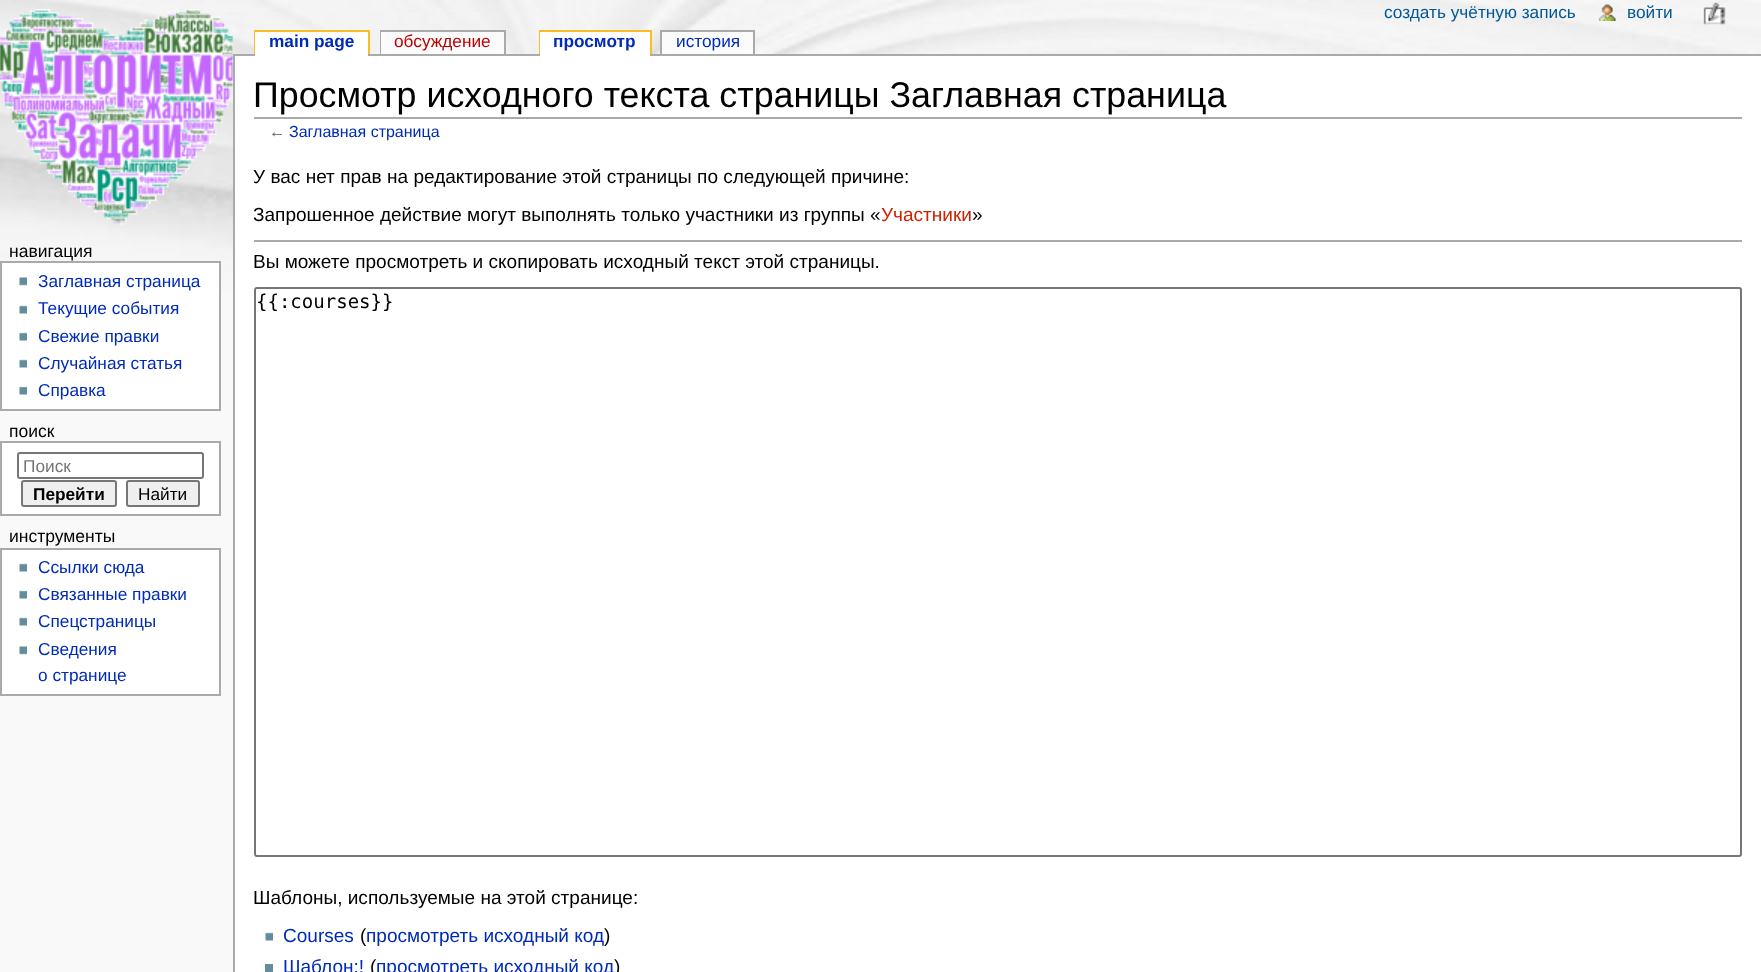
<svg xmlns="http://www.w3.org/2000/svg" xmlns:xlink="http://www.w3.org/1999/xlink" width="1761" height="972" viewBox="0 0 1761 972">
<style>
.cls-1{font:bold 17.25px Liberation Sans;fill:#002bb8}
.cls-2{font:17.25px Liberation Sans;fill:#ba0000}
.cls-3{font:17.25px Liberation Sans;fill:#002bb8}
.cls-4{font:17.25px Liberation Sans;fill:#005896}
.cls-5{font:17.5px Liberation Sans;fill:#000000}
.cls-6{font:17.25px Liberation Sans;fill:#757575}
.cls-7{font:bold 17.25px Liberation Sans;fill:#000000}
.cls-8{font:17.25px Liberation Sans;fill:#000000}
.cls-9{font:35.8px Liberation Sans;fill:#000000}
.cls-10{font:16px Liberation Sans;fill:#545454}
.cls-11{font:16px Liberation Sans;fill:#002bb8}
.cls-12{font:19.05px Liberation Sans;fill:#000000}
.cls-13{font:19.05px Liberation Sans;fill:#cc2200}
.cls-14{font:19.05px DejaVu Sans Mono;fill:#000000}
.cls-15{font:19.05px Liberation Sans;fill:#002bb8}
</style>
<rect width="100%" height="100%" fill="#f9f9f9"/>
<image xlink:href="image0.png" x="0" y="0" width="1761" height="292"/>
<image xlink:href="image1.png" x="0" y="9" width="233" height="216"/>
<rect fill="#fabd23" x="254" y="30" width="115" height="2"/>
<rect fill="#fabd23" x="368" y="30" width="2" height="24"/>
<rect fill="#fabd23" x="254" y="30" width="2" height="24"/>
<rect fill="#aaaaaa" x="233" y="54" width="1528" height="2"/>
<rect fill="#ffffff" x="255" y="32" width="113" height="24"/>
<rect fill="#aaaaaa" x="380" y="30" width="126" height="2"/>
<rect fill="#aaaaaa" x="504" y="30" width="2" height="24"/>
<rect fill="#aaaaaa" x="380" y="30" width="2" height="24"/>
<rect fill="#fbfbfb" x="381" y="32" width="123" height="22"/>
<rect fill="#fabd23" x="539" y="30" width="112" height="2"/>
<rect fill="#fabd23" x="650" y="30" width="2" height="24"/>
<rect fill="#fabd23" x="539" y="30" width="2" height="24"/>
<rect fill="#ffffff" x="540" y="32" width="110" height="24"/>
<rect fill="#aaaaaa" x="660" y="30" width="95" height="2"/>
<rect fill="#aaaaaa" x="753" y="30" width="2" height="24"/>
<rect fill="#aaaaaa" x="660" y="30" width="2" height="24"/>
<rect fill="#fbfbfb" x="662" y="32" width="91" height="22"/>
<image xlink:href="image2.png" x="1598" y="4" width="18" height="17"/>
<image xlink:href="image3.png" x="1703" y="2" width="23" height="23"/>
<rect fill="#ffffff" stroke="#aaaaaa" stroke-width="2" x="1" y="262" width="219" height="148"/>
<image xlink:href="image4.png" x="19" y="277" width="8" height="9"/>
<image xlink:href="image5.png" x="19" y="305" width="8" height="9"/>
<image xlink:href="image5.png" x="19" y="332" width="8" height="9"/>
<image xlink:href="image5.png" x="19" y="359" width="8" height="9"/>
<image xlink:href="image5.png" x="19" y="386" width="8" height="9"/>
<rect fill="#ffffff" stroke="#aaaaaa" stroke-width="2" x="1" y="442" width="219" height="73"/>
<rect fill="none" stroke="#767676" stroke-width="2" x="18" y="453" width="185" height="25" rx="2"/>
<rect fill="#efefef" stroke="#767676" stroke-width="2" x="22" y="481" width="94" height="25" rx="2"/>
<rect fill="#efefef" stroke="#767676" stroke-width="2" x="127" y="481" width="72" height="25" rx="2"/>
<rect fill="#ffffff" stroke="#aaaaaa" stroke-width="2" x="1" y="549" width="219" height="146"/>
<image xlink:href="image5.png" x="19" y="563" width="8" height="9"/>
<image xlink:href="image5.png" x="19" y="590" width="8" height="9"/>
<image xlink:href="image5.png" x="19" y="617" width="8" height="9"/>
<image xlink:href="image4.png" x="19" y="646" width="8" height="9"/>
<rect fill="#ffffff" x="235" y="56" width="1526" height="916"/>
<rect fill="#aaaaaa" x="233" y="54" width="2" height="918"/>
<rect fill="#aaaaaa" x="254" y="117" width="1488" height="2"/>
<rect fill="#aaaaaa" x="254" y="240" width="1488" height="2"/>
<rect fill="none" stroke="#767676" stroke-width="2" x="255" y="288" width="1486" height="568" rx="2"/>
<image xlink:href="image5.png" x="265" y="932" width="8" height="9"/>
<rect fill="#638c9c" x="265" y="964" width="8" height="8"/>
<text class="cls-1" x="269" y="47">main page</text>
<text class="cls-2" x="394" y="47">обсуждение</text>
<text class="cls-1" x="553" y="47">просмотр</text>
<text class="cls-3" x="676" y="47">история</text>
<text class="cls-4" x="1384" y="18">создать учётную запись</text>
<text class="cls-4" x="1627" y="18">войти</text>
<text class="cls-5" x="9" y="257">навигация</text>
<text class="cls-3"><tspan x="38" y="287">Заглавная страница</tspan><tspan x="38" y="314">Текущие события</tspan><tspan x="38" y="342">Свежие правки</tspan><tspan x="38" y="369">Случайная статья</tspan><tspan x="38" y="396">Справка</tspan></text>
<text class="cls-5" x="9" y="437">поиск</text>
<text class="cls-6" x="23" y="472">Поиск</text>
<text class="cls-7" x="33" y="500">Перейти</text>
<text class="cls-8" x="138" y="500">Найти</text>
<text class="cls-5" x="9" y="542">инструменты</text>
<text class="cls-3"><tspan x="38" y="573">Ссылки сюда</tspan><tspan x="38" y="600">Связанные правки</tspan><tspan x="38" y="627">Спецстраницы</tspan><tspan x="38" y="655">Сведения</tspan><tspan x="38" y="681">о странице</tspan></text>
<text class="cls-9" x="253" y="107">Просмотр исходного текста страницы Заглавная страница</text>
<text class="cls-10" x="269" y="137">←</text>
<text class="cls-11" x="289" y="137">Заглавная страница</text>
<text class="cls-12"><tspan x="253" y="183">У вас нет прав на редактирование этой страницы по следующей причине:</tspan><tspan x="253" y="221">Запрошенное действие могут выполнять только участники из группы «</tspan></text>
<text class="cls-13" x="881" y="221">Участники</text>
<text class="cls-12" x="972" y="221">»</text>
<text class="cls-12" x="253" y="268">Вы можете просмотреть и скопировать исходный текст этой страницы.</text>
<text class="cls-14" x="256" y="308">{{:courses}}</text>
<text class="cls-12" x="253" y="904">Шаблоны, используемые на этой странице:</text>
<text class="cls-15" x="283" y="942">Courses</text>
<text class="cls-12" x="360" y="942">(</text>
<text class="cls-15" x="366" y="942">просмотреть исходный код</text>
<text class="cls-12" x="604" y="942">)</text>
<text class="cls-15" x="283" y="973">Шаблон:!</text>
<text class="cls-12" x="370" y="973">(</text>
<text class="cls-15" x="376" y="973">просмотреть исходный код</text>
<text class="cls-12" x="614" y="973">)</text>
</svg>
